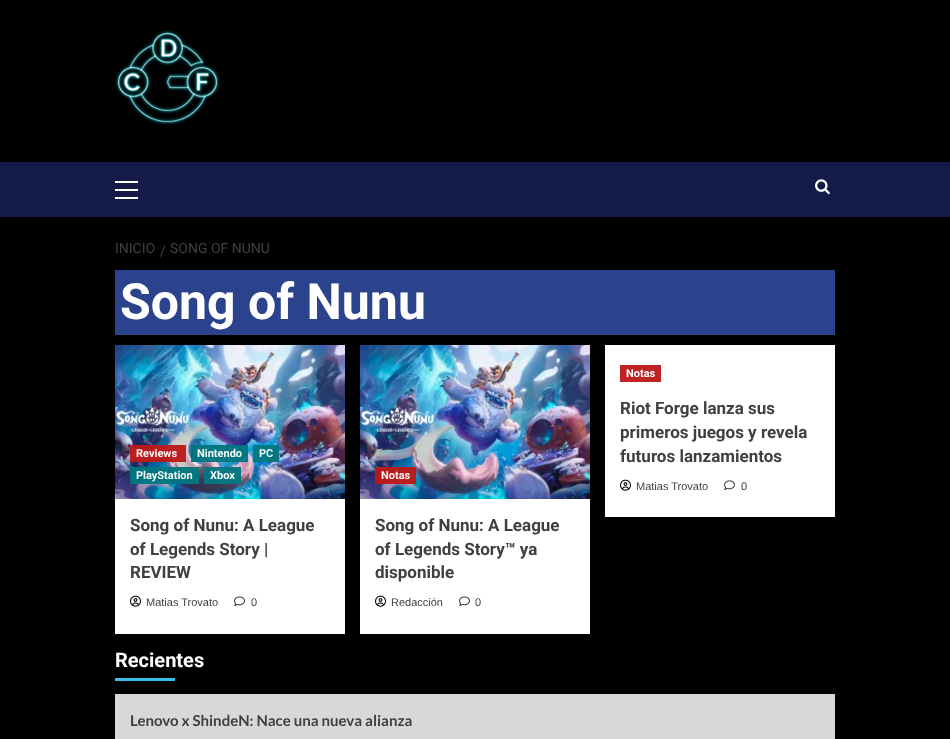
<svg xmlns="http://www.w3.org/2000/svg" xmlns:xlink="http://www.w3.org/1999/xlink" width="950" height="739" viewBox="0 0 950 739">
<style>
.cls-1{font:14px Roboto;fill:#404040}
.cls-2{font:bold 50px Roboto;fill:#ffffff}
.cls-3{font:bold 11px Roboto;fill:#ffffff}
.cls-4{font:bold 17px Roboto;fill:#404040}
.cls-5{font:11px Liberation Sans;fill:#404040}
.cls-6{font:bold 11px Roboto;fill:#fcf6f6}
.cls-7{font:bold 11px Roboto;fill:#f5fafa}
.cls-8{font:bold 20px Roboto;fill:#ffffff}
.cls-9{font:bold 15px Lato;fill:#404040}
</style>
<rect width="100%" height="100%" fill="#000000"/>
<image xlink:href="image0.png" x="115" y="30" width="105" height="95"/>
<rect fill="#151b48" x="0" y="162" width="950" height="55"/>
<rect fill="#ffffff" x="115" y="189" width="23" height="2"/>
<rect fill="#ffffff" x="115" y="181" width="23" height="2"/>
<rect fill="#ffffff" x="115" y="197" width="23" height="2"/>
<image xlink:href="image1.png" x="815" y="179" width="15" height="16"/>
<rect fill="#2b438d" x="115" y="270" width="720" height="65"/>
<rect fill="#ffffff" x="605" y="345" width="230" height="172"/>
<rect fill="#be2222" x="620" y="365" width="41" height="17"/>
<image xlink:href="image2.png" x="620" y="479" width="11" height="12"/>
<image xlink:href="image3.png" x="724" y="480" width="11" height="10"/>
<rect fill="#ffffff" x="115" y="499" width="230" height="135"/>
<image xlink:href="image4.png" x="115" y="345" width="230" height="154"/>
<rect fill="#bb1919" fill-opacity="0.96" x="130" y="445" width="56" height="17"/>
<rect fill="#01777f" fill-opacity="0.96" x="191" y="445" width="57" height="17"/>
<rect fill="#01777f" fill-opacity="0.96" x="253" y="445" width="26" height="17"/>
<rect fill="#01777f" fill-opacity="0.96" x="130" y="467" width="69" height="17"/>
<rect fill="#01777f" fill-opacity="0.96" x="204" y="467" width="37" height="17"/>
<image xlink:href="image2.png" x="130" y="595" width="11" height="12"/>
<image xlink:href="image3.png" x="234" y="596" width="11" height="10"/>
<rect fill="#ffffff" x="360" y="499" width="230" height="135"/>
<image xlink:href="image5.png" x="360" y="345" width="230" height="154"/>
<rect fill="#bb1919" fill-opacity="0.96" x="375" y="467" width="41" height="17"/>
<image xlink:href="image2.png" x="375" y="595" width="11" height="12"/>
<image xlink:href="image3.png" x="459" y="596" width="11" height="10"/>
<rect fill="#37c0e8" x="115" y="678" width="60" height="3"/>
<rect fill="#d8d8d8" x="115" y="694" width="720" height="45"/>
<text class="cls-1" x="115" y="253">INICIO</text>
<text class="cls-1" x="160" y="256">/</text>
<text class="cls-1" x="170" y="253">SONG OF NUNU</text>
<text class="cls-2" x="120" y="319">Song of Nunu</text>
<text class="cls-3" x="626" y="377">Notas</text>
<text class="cls-4"><tspan x="620" y="414">Riot Forge lanza sus</tspan><tspan x="620" y="438">primeros juegos y revela</tspan><tspan x="620" y="462">futuros lanzamientos</tspan></text>
<text class="cls-5" x="636" y="490">Matias Trovato</text>
<text class="cls-5" x="741" y="490">0</text>
<text class="cls-6" x="136" y="457"> Reviews</text>
<text class="cls-7" x="197" y="457">Nintendo</text>
<text class="cls-7" x="259" y="457">PC</text>
<text class="cls-7" x="136" y="479">PlayStation</text>
<text class="cls-7" x="210" y="479">Xbox</text>
<text class="cls-4"><tspan x="130" y="531">Song of Nunu: A League</tspan><tspan x="130" y="555">of Legends Story |</tspan><tspan x="130" y="578">REVIEW</tspan></text>
<text class="cls-5" x="146" y="606">Matias Trovato</text>
<text class="cls-5" x="251" y="606">0</text>
<text class="cls-6" x="381" y="479">Notas</text>
<text class="cls-4"><tspan x="375" y="531">Song of Nunu: A League</tspan><tspan x="375" y="555">of Legends Story™ ya</tspan><tspan x="375" y="578">disponible</tspan></text>
<text class="cls-5" x="391" y="606">Redacción</text>
<text class="cls-5" x="475" y="606">0</text>
<text class="cls-8" x="115" y="667">Recientes</text>
<text class="cls-9" x="130" y="726">Lenovo x ShindeN: Nace una nueva alianza</text>
</svg>
